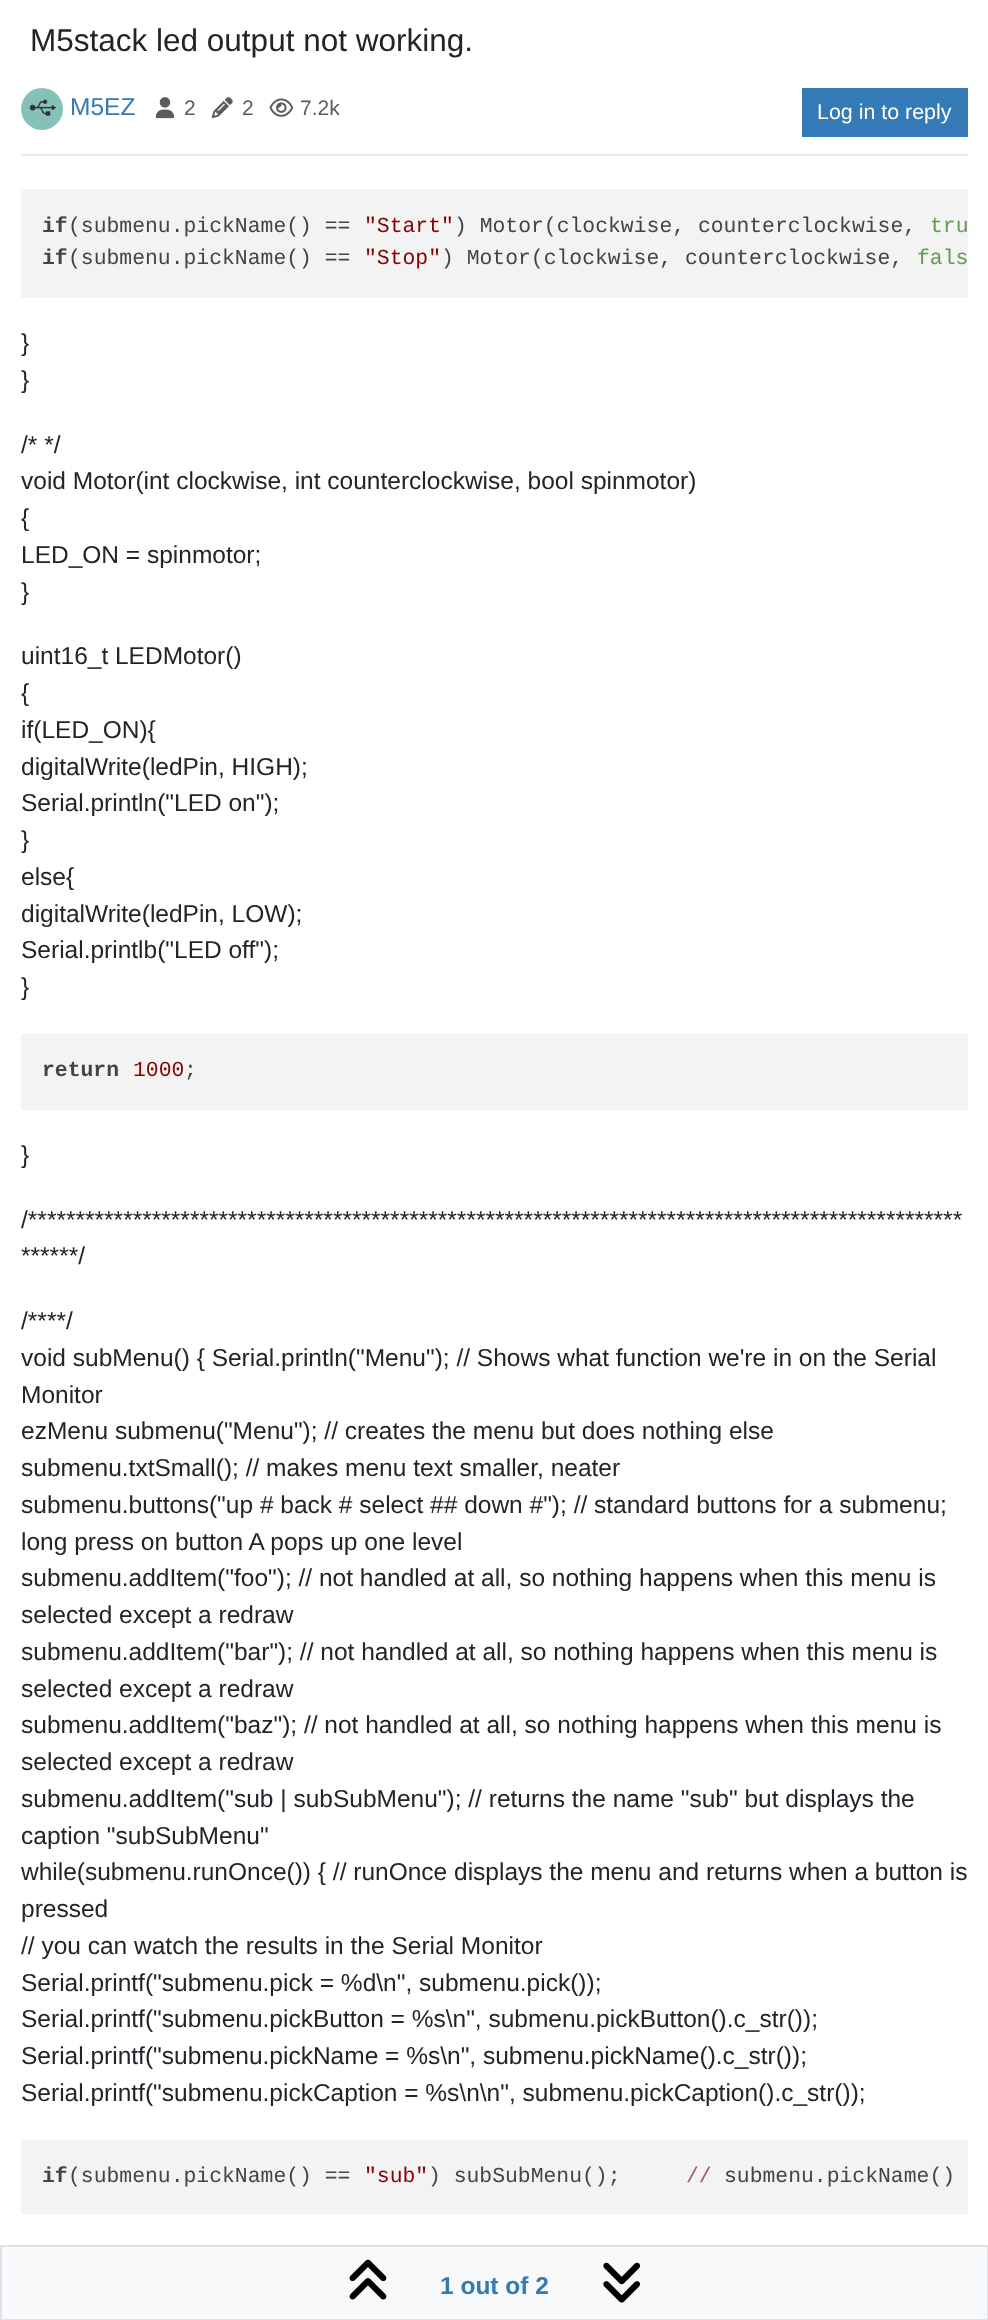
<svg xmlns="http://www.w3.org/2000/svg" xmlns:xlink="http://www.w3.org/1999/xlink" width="988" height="2320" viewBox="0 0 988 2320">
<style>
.cls-1{font:31.5px Liberation Sans;fill:#212529}
.cls-2{font:24.5px Liberation Sans;fill:#337ab7}
.cls-3{font:21px Liberation Sans;fill:#595c5f}
.cls-4{font:21.4px Liberation Sans;fill:#ffffff}
.cls-5{font:bold 21.4px Liberation Mono;fill:#444444}
.cls-6{font:21.4px Liberation Mono;fill:#444444}
.cls-7{font:21.4px Liberation Mono;fill:#880000}
.cls-8{font:21.4px Liberation Mono;fill:#669955}
.cls-9{font:24.5px Liberation Sans;fill:#212529}
.cls-10{font:21.4px Liberation Mono;fill:#ab5656}
.cls-11{font:bold 24.5px Liberation Sans;fill:#337ab7}
</style>
<rect width="100%" height="100%" fill="#ffffff"/>
<rect fill="#e9ecef" x="21" y="154" width="947" height="2"/>
<circle fill="#86c1b9" cx="42" cy="109" r="21"/>
<image xlink:href="image0.png" x="29" y="99" width="27" height="17"/>
<image xlink:href="image1.png" x="155" y="97" width="20" height="22"/>
<image xlink:href="image2.png" x="211" y="97" width="22" height="22"/>
<image xlink:href="image3.png" x="269" y="98" width="25" height="19"/>
<rect fill="#337ab7" x="802" y="88" width="166" height="49"/>
<rect fill="#f3f3f3" x="21" y="189" width="947" height="109"/>
<rect fill="#f3f3f3" x="21" y="1034" width="947" height="76"/>
<rect fill="#f3f3f3" x="21" y="2140" width="947" height="74"/>
<rect fill="#f8f9fa" stroke="#dee2e6" stroke-width="2" x="1" y="2246" width="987" height="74"/>
<image xlink:href="image4.png" x="349" y="2259" width="38" height="41"/>
<image xlink:href="image5.png" x="603" y="2262" width="37" height="41"/>
<text class="cls-1" x="30" y="51">M5stack led output not working.</text>
<text class="cls-2" x="70" y="115">M5EZ</text>
<text class="cls-3" x="184" y="115">2</text>
<text class="cls-3" x="242" y="115">2</text>
<text class="cls-3" x="300" y="115">7.2k</text>
<text class="cls-4" x="817" y="119">Log in to reply</text>
<text class="cls-5" x="42" y="232">if</text>
<text class="cls-6" x="68" y="232">(submenu.pickName() ==</text>
<text class="cls-7" x="364" y="232">"Start"</text>
<text class="cls-6" x="454" y="232">) Motor(clockwise, counterclockwise,</text>
<text class="cls-8" x="930" y="232">tru</text>
<text class="cls-5" x="42" y="264">if</text>
<text class="cls-6" x="68" y="264">(submenu.pickName() ==</text>
<text class="cls-7" x="364" y="264">"Stop"</text>
<text class="cls-6" x="441" y="264">) Motor(clockwise, counterclockwise,</text>
<text class="cls-8" x="917" y="264">fals</text>
<text class="cls-9"><tspan x="21" y="351">}</tspan><tspan x="21" y="388">}</tspan></text>
<text class="cls-9"><tspan x="21" y="453">/* */</tspan><tspan x="21" y="489">void Motor(int clockwise, int counterclockwise, bool spinmotor)</tspan><tspan x="21" y="526">{</tspan><tspan x="21" y="563">LED_ON = spinmotor;</tspan><tspan x="21" y="600">}</tspan></text>
<text class="cls-9"><tspan x="21" y="664">uint16_t LEDMotor()</tspan><tspan x="21" y="701">{</tspan><tspan x="21" y="738">if(LED_ON){</tspan><tspan x="21" y="775">digitalWrite(ledPin, HIGH);</tspan><tspan x="21" y="811">Serial.println("LED on");</tspan><tspan x="21" y="848">}</tspan><tspan x="21" y="885">else{</tspan><tspan x="21" y="922">digitalWrite(ledPin, LOW);</tspan><tspan x="21" y="958">Serial.printlb("LED off");</tspan><tspan x="21" y="995">}</tspan></text>
<text class="cls-5" x="42" y="1076">return</text>
<text class="cls-7" x="133" y="1076">1000</text>
<text class="cls-6" x="184" y="1076">;</text>
<text class="cls-9" x="21" y="1163">}</text>
<text class="cls-9"><tspan x="21" y="1228">/**************************************************************************************************</tspan><tspan x="21" y="1264">******/</tspan></text>
<text class="cls-9"><tspan x="21" y="1329">/****/</tspan><tspan x="21" y="1366">void subMenu() { Serial.println("Menu"); // Shows what function we're in on the Serial</tspan><tspan x="21" y="1403">Monitor</tspan><tspan x="21" y="1439">ezMenu submenu("Menu"); // creates the menu but does nothing else</tspan><tspan x="21" y="1476">submenu.txtSmall(); // makes menu text smaller, neater</tspan><tspan x="21" y="1513">submenu.buttons("up # back # select ## down #"); // standard buttons for a submenu;</tspan><tspan x="21" y="1550">long press on button A pops up one level</tspan><tspan x="21" y="1586">submenu.addItem("foo"); // not handled at all, so nothing happens when this menu is</tspan><tspan x="21" y="1623">selected except a redraw</tspan><tspan x="21" y="1660">submenu.addItem("bar"); // not handled at all, so nothing happens when this menu is</tspan><tspan x="21" y="1697">selected except a redraw</tspan><tspan x="21" y="1733">submenu.addItem("baz"); // not handled at all, so nothing happens when this menu is</tspan><tspan x="21" y="1770">selected except a redraw</tspan><tspan x="21" y="1807">submenu.addItem("sub | subSubMenu"); // returns the name "sub" but displays the</tspan><tspan x="21" y="1844">caption "subSubMenu"</tspan><tspan x="21" y="1880">while(submenu.runOnce()) { // runOnce displays the menu and returns when a button is</tspan><tspan x="21" y="1917">pressed</tspan><tspan x="21" y="1954">// you can watch the results in the Serial Monitor</tspan><tspan x="21" y="1991">Serial.printf("submenu.pick = %d\n", submenu.pick());</tspan><tspan x="21" y="2027">Serial.printf("submenu.pickButton = %s\n", submenu.pickButton().c_str());</tspan><tspan x="21" y="2064">Serial.printf("submenu.pickName = %s\n", submenu.pickName().c_str());</tspan><tspan x="21" y="2101">Serial.printf("submenu.pickCaption = %s\n\n", submenu.pickCaption().c_str());</tspan></text>
<text class="cls-5" x="42" y="2182">if</text>
<text class="cls-6" x="68" y="2182">(submenu.pickName() ==</text>
<text class="cls-7" x="364" y="2182">"sub"</text>
<text class="cls-6" x="428" y="2182">) subSubMenu();</text>
<text class="cls-10" x="686" y="2182">//</text>
<text class="cls-6" x="724" y="2182">submenu.pickName()</text>
<text class="cls-11" x="440" y="2294">1 out of 2</text>
</svg>
